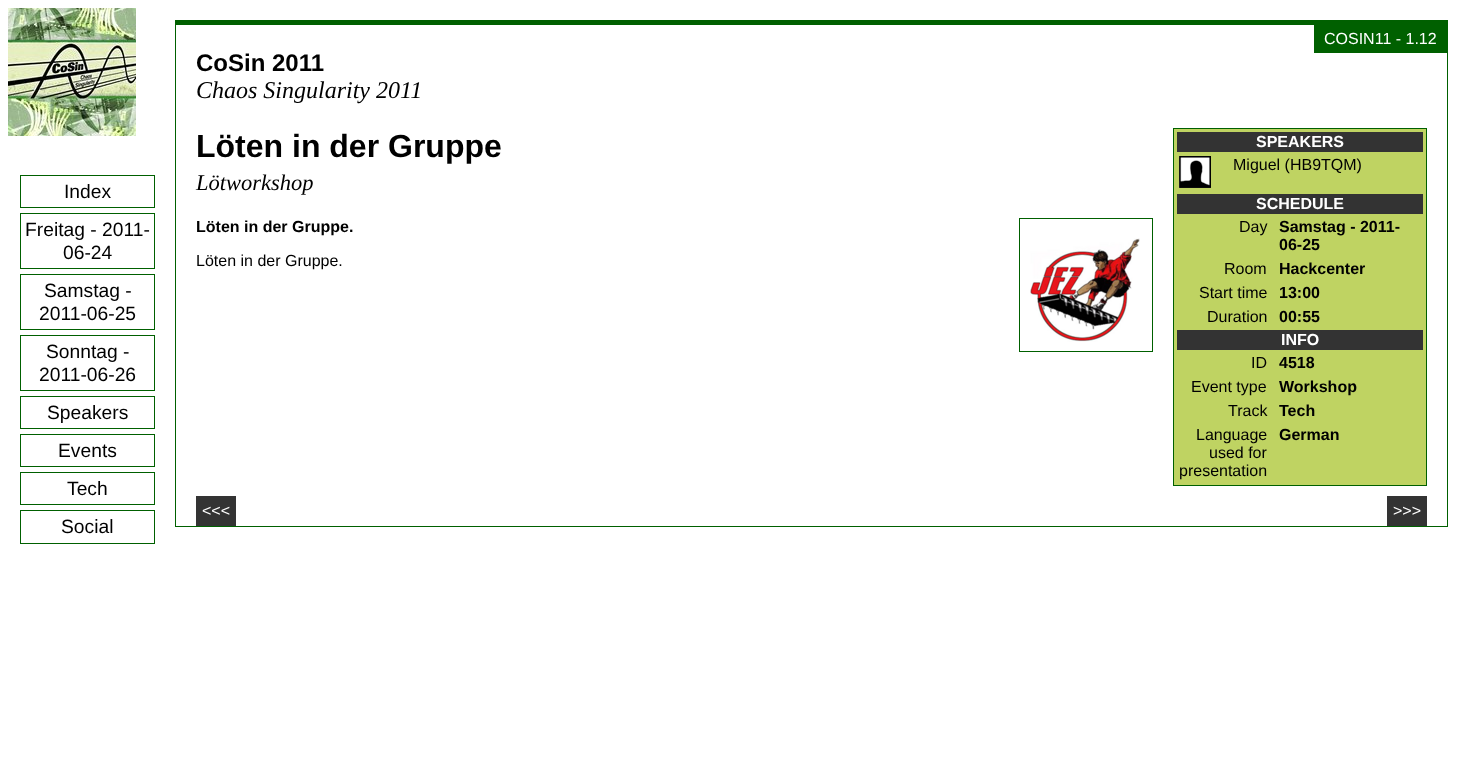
<svg xmlns="http://www.w3.org/2000/svg" xmlns:xlink="http://www.w3.org/1999/xlink" width="1468" height="769" viewBox="0 0 1468 769">
<style>
.cls-1{font:16px Liberation Sans;fill:#ffffff}
.cls-2{font:bold 24px Liberation Sans;fill:#000000}
.cls-3{font:italic 24px Liberation Serif;fill:#000000}
.cls-4{font:bold 32px Liberation Sans;fill:#000000}
.cls-5{font:bold 16px Liberation Sans;fill:#ffffff}
.cls-6{font:16px Liberation Sans;fill:#000000}
.cls-7{font:bold 16px Liberation Sans;fill:#000000}
.cls-8{font:italic 22.5px Liberation Serif;fill:#000000}
.cls-9{font:19.25px Liberation Sans;fill:#000000}
</style>
<rect width="100%" height="100%" fill="#ffffff"/>
<image xlink:href="image0.png" x="8" y="8" width="128" height="128"/>
<rect fill="#006000" x="175" y="20" width="1273" height="5"/>
<rect fill="#006000" x="1447" y="20" width="1" height="507"/>
<rect fill="#006000" x="175" y="526" width="1273" height="1"/>
<rect fill="#006000" x="175" y="20" width="1" height="507"/>
<rect fill="#006000" x="1314" y="25" width="133" height="28"/>
<rect fill="#bfd362" stroke="#006000" x="1173.5" y="128.5" width="253" height="357"/>
<rect fill="#333333" x="1177" y="132" width="246" height="20"/>
<image xlink:href="image1.png" x="1179" y="156" width="32" height="32"/>
<rect fill="#333333" x="1177" y="194" width="246" height="20"/>
<rect fill="#333333" x="1177" y="330" width="246" height="20"/>
<rect fill="none" stroke="#006000" x="1019.5" y="218.5" width="133" height="133"/>
<image xlink:href="image2.png" x="1030" y="238" width="110" height="104"/>
<rect fill="#333333" x="196" y="496" width="40" height="30"/>
<rect fill="#333333" x="1387" y="496" width="40" height="30"/>
<rect fill="none" stroke="#006000" x="20.5" y="175.5" width="134" height="32"/>
<rect fill="none" stroke="#006000" x="20.5" y="213.5" width="134" height="55"/>
<rect fill="none" stroke="#006000" x="20.5" y="274.5" width="134" height="55"/>
<rect fill="none" stroke="#006000" x="20.5" y="335.5" width="134" height="55"/>
<rect fill="none" stroke="#006000" x="20.5" y="396.5" width="134" height="32"/>
<rect fill="none" stroke="#006000" x="20.5" y="434.5" width="134" height="32"/>
<rect fill="none" stroke="#006000" x="20.5" y="472.5" width="134" height="32"/>
<rect fill="none" stroke="#006000" x="20.5" y="510.5" width="134" height="33"/>
<text class="cls-1" x="1324" y="44">COSIN11 - 1.12</text>
<text class="cls-2" x="196" y="71">CoSin 2011</text>
<text class="cls-3" x="196" y="98">Chaos Singularity 2011</text>
<text class="cls-4" x="196" y="157">Löten in der Gruppe</text>
<text class="cls-5" x="1256" y="147">SPEAKERS</text>
<text class="cls-6" x="1233" y="170">Miguel (HB9TQM)</text>
<text class="cls-5" x="1256" y="209">SCHEDULE</text>
<text class="cls-6" x="1239" y="232">Day</text>
<text class="cls-7"><tspan x="1279" y="232">Samstag - 2011-</tspan><tspan x="1279" y="250">06-25</tspan></text>
<text class="cls-6" x="1224" y="274">Room</text>
<text class="cls-7" x="1279" y="274">Hackcenter</text>
<text class="cls-6" x="1199" y="298">Start time</text>
<text class="cls-7" x="1279" y="298">13:00</text>
<text class="cls-6" x="1207" y="322">Duration</text>
<text class="cls-7" x="1279" y="322">00:55</text>
<text class="cls-5" x="1281" y="345">INFO</text>
<text class="cls-6" x="1251" y="368">ID</text>
<text class="cls-7" x="1279" y="368">4518</text>
<text class="cls-6" x="1191" y="392">Event type</text>
<text class="cls-7" x="1279" y="392">Workshop</text>
<text class="cls-6" x="1228" y="416">Track</text>
<text class="cls-7" x="1279" y="416">Tech</text>
<text class="cls-6" x="1196" y="440">Language</text>
<text class="cls-6" x="1209" y="458">used for</text>
<text class="cls-6" x="1179" y="476">presentation</text>
<text class="cls-7" x="1279" y="440">German</text>
<text class="cls-8" x="196" y="190">Lötworkshop</text>
<text class="cls-7" x="196" y="232">Löten in der Gruppe.</text>
<text class="cls-6" x="196" y="266">Löten in der Gruppe.</text>
<text class="cls-1" x="202" y="516">&lt;&lt;&lt;</text>
<text class="cls-1" x="1393" y="516">&gt;&gt;&gt;</text>
<text class="cls-9" x="64" y="198">Index</text>
<text class="cls-9" x="25" y="236">Freitag - 2011-</text>
<text class="cls-9" x="63" y="259">06-24</text>
<text class="cls-9" x="44" y="297">Samstag -</text>
<text class="cls-9" x="39" y="320">2011-06-25</text>
<text class="cls-9" x="46" y="358">Sonntag -</text>
<text class="cls-9" x="39" y="381">2011-06-26</text>
<text class="cls-9" x="47" y="419">Speakers</text>
<text class="cls-9" x="58" y="457">Events</text>
<text class="cls-9" x="67" y="495">Tech</text>
<text class="cls-9" x="61" y="533">Social</text>
</svg>
